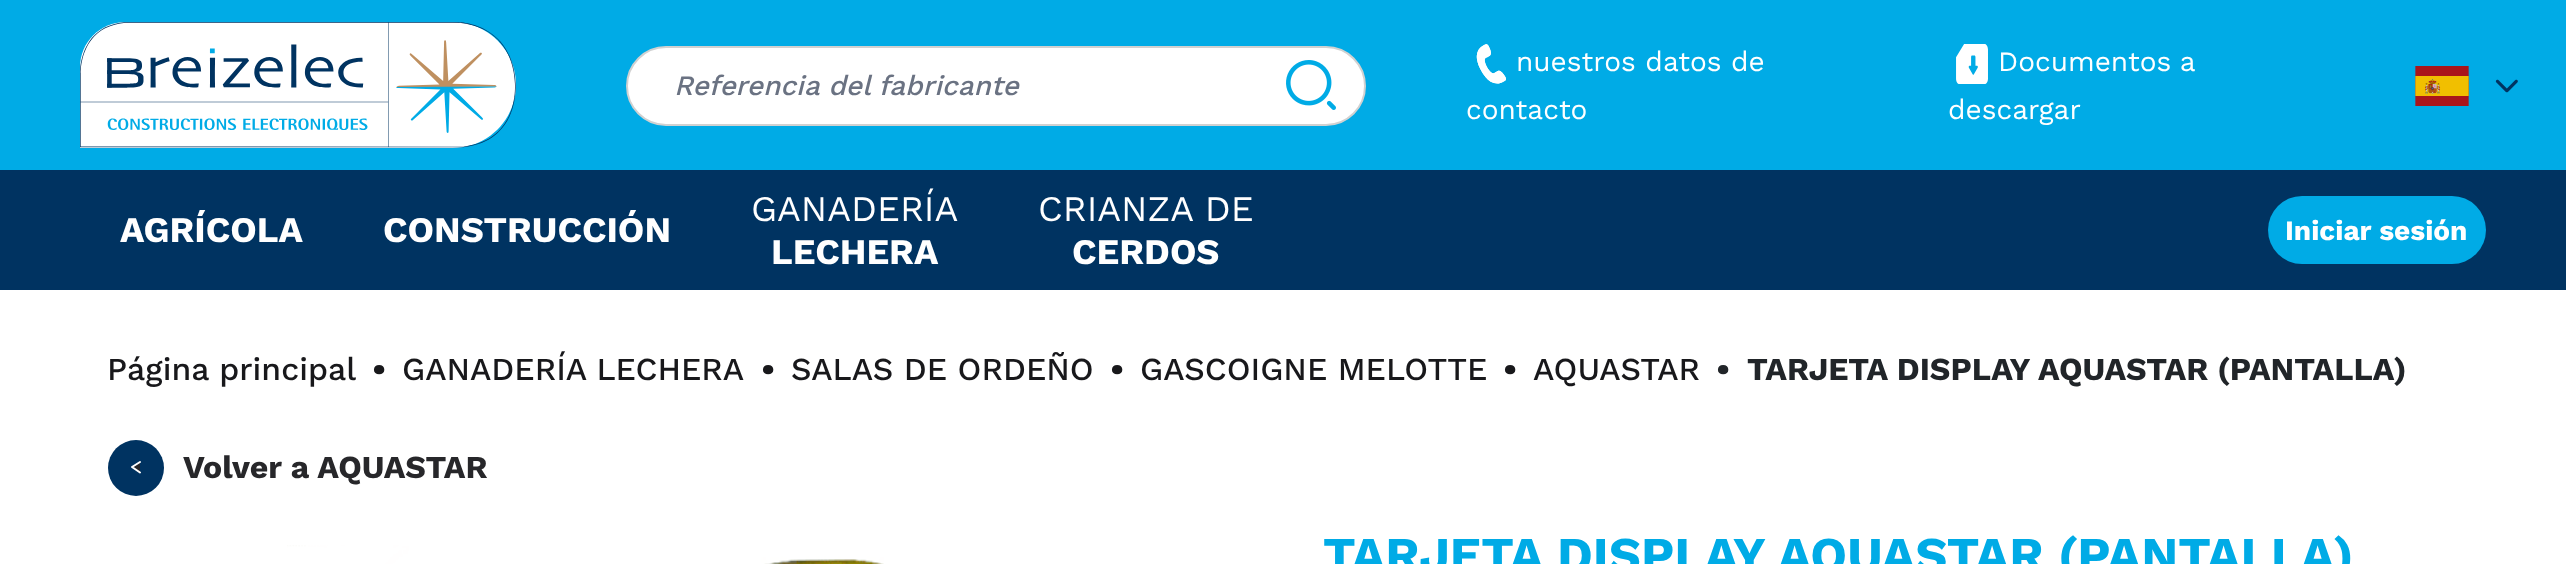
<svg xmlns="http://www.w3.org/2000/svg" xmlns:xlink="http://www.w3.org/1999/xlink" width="2566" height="564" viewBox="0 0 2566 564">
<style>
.cls-1{font:italic 500 28px Work Sans;fill:#6a7282}
.cls-2{font:28px Work Sans;fill:#ffffff}
.cls-3{font:bold 36px Work Sans;fill:#ffffff}
.cls-4{font:36px Work Sans;fill:#ffffff}
.cls-5{font:bold 28px Work Sans;fill:#ffffff}
.cls-6{font:500 32px Work Sans;fill:#18181b}
.cls-7{font:bold 52px Work Sans;fill:#18181b}
.cls-8{font:bold 52px Work Sans;fill:#212529}
.cls-9{font:bold 32px Work Sans;fill:#212529}
.cls-10{font:bold 32px Work Sans;fill:#27272a}
.cls-11{font:bold 50px Work Sans;fill:#00abe6}
</style>
<rect width="100%" height="100%" fill="#ffffff"/>
<rect fill="#00abe6" x="0" y="0" width="2566" height="170"/>
<image xlink:href="image0.png" x="80" y="22" width="436" height="126"/>
<rect fill="#ffffff" stroke="#d1d1d1" stroke-width="2" x="627" y="47" width="738" height="78" rx="39"/>
<image xlink:href="image1.png" x="1286" y="60" width="50" height="50"/>
<image xlink:href="image2.png" x="1476" y="44" width="30" height="40"/>
<image xlink:href="image3.png" x="1956" y="44" width="32" height="40"/>
<image xlink:href="image4.png" x="2415" y="66" width="54" height="40"/>
<image xlink:href="image5.png" x="2495" y="79" width="23" height="14"/>
<rect fill="#003361" x="0" y="170" width="2566" height="120"/>
<rect fill="#00abe6" x="2268" y="196" width="218" height="68" rx="34"/>
<circle fill="#003361" cx="136" cy="468" r="28"/>
<path fill="#27272a" fill-rule="evenodd" stroke="#ffffff" stroke-width="2" stroke-linecap="round" stroke-linejoin="round" d="M140 462L132 467L140 472.5"/>
<image xlink:href="image6.png" x="287" y="545" width="597" height="19"/>
<text class="cls-1" x="674" y="95">Referencia del fabricante</text>
<text class="cls-2" x="1516" y="71">nuestros datos de</text>
<text class="cls-2" x="1466" y="119">contacto</text>
<text class="cls-2" x="1998" y="71" word-spacing="-1">Documentos a</text>
<text class="cls-2" x="1948" y="119">descargar</text>
<text class="cls-3" x="120" y="242">AGRÍCOLA</text>
<text class="cls-3" x="383" y="242">CONSTRUCCIÓN</text>
<text class="cls-4" x="751" y="221">GANADERÍA</text>
<text class="cls-3" x="771" y="264">LECHERA</text>
<text class="cls-4" x="1038" y="221">CRIANZA DE</text>
<text class="cls-3" x="1072" y="264">CERDOS</text>
<text class="cls-5" x="2285" y="240">Iniciar sesión</text>
<text class="cls-6" x="107" y="380">Página principal</text>
<text class="cls-7" x="372" y="388">·</text>
<text class="cls-6" x="402" y="380">GANADERÍA LECHERA</text>
<text class="cls-7" x="761" y="388">·</text>
<text class="cls-6" x="791" y="380">SALAS DE ORDEÑO</text>
<text class="cls-7" x="1110" y="388">·</text>
<text class="cls-6" x="1140" y="380">GASCOIGNE MELOTTE</text>
<text class="cls-7" x="1503" y="388">·</text>
<text class="cls-6" x="1533" y="380">AQUASTAR</text>
<text class="cls-8" x="1716" y="388">·</text>
<text class="cls-9" x="1747" y="380">TARJETA DISPLAY AQUASTAR (PANTALLA)</text>
<text class="cls-10" x="183" y="478">Volver a AQUASTAR</text>
<text class="cls-11" x="1323" y="572">TARJETA DISPLAY AQUASTAR (PANTALLA)</text>
</svg>
